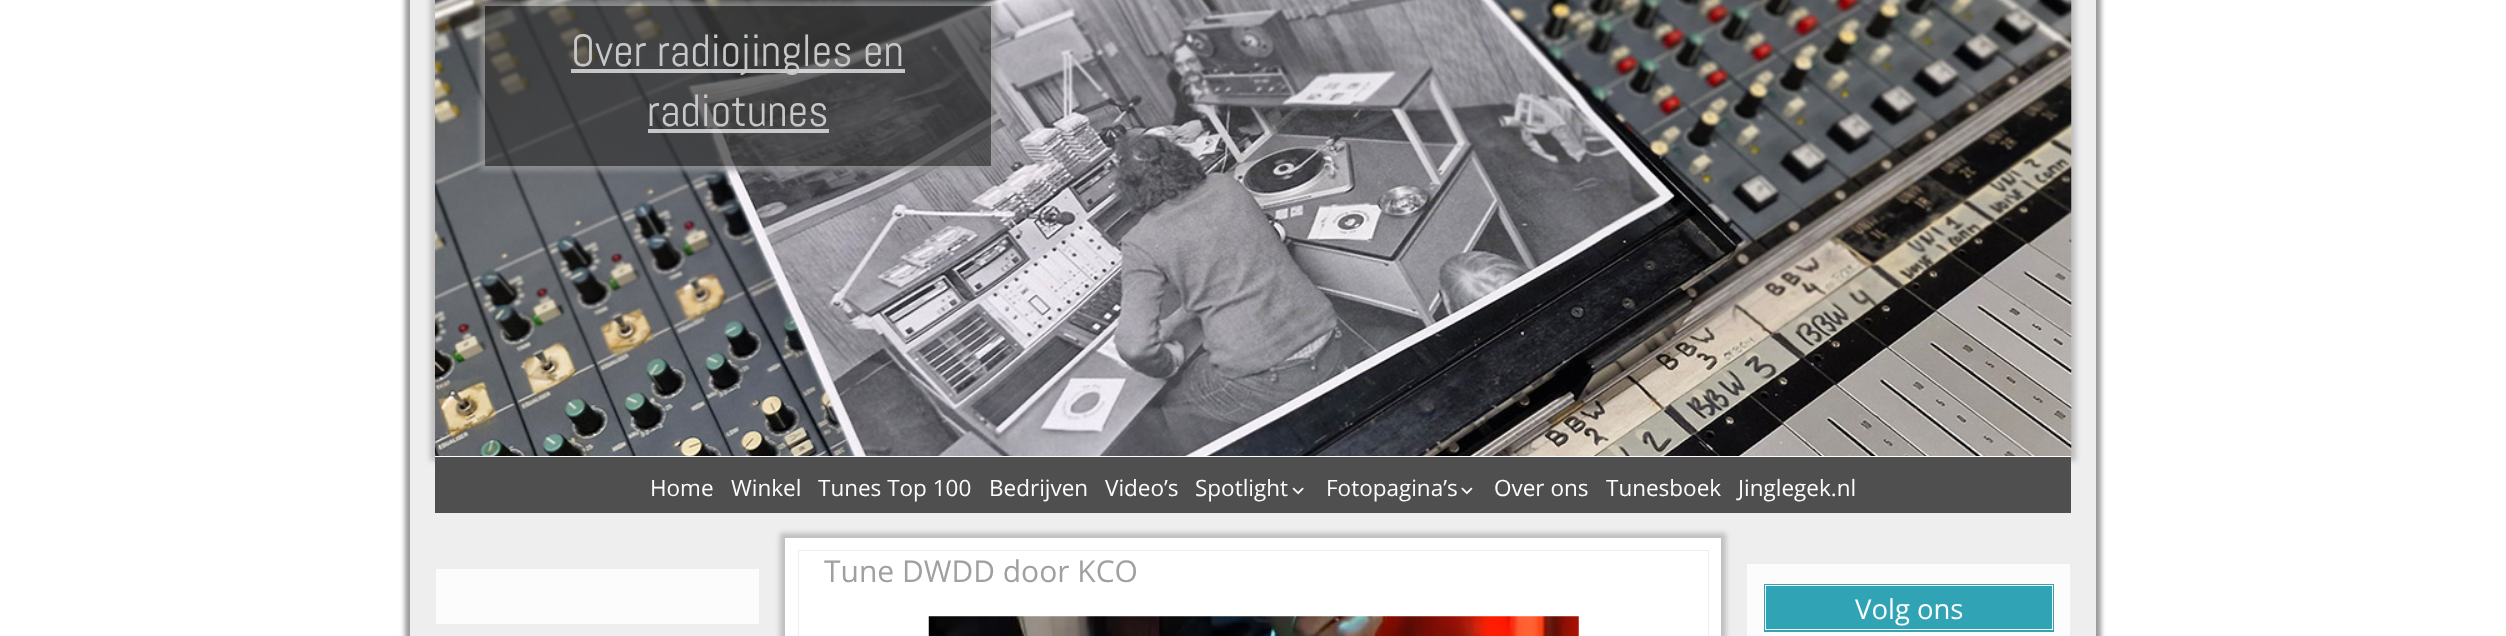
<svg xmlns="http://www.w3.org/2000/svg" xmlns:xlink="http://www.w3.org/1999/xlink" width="2506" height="636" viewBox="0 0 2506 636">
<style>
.cls-1{font:45px Abel;fill:#c7c7c7}
.cls-2{font:22.5px Open Sans;fill:#fcfcfc}
.cls-3{font:27.5px Open Sans;fill:#fcfcfc}
.cls-4{font:30px Open Sans;fill:#a0a0a0}
</style>
<defs>
<clipPath id="clip1"><path d="M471 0H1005V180H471ZM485 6H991V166H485Z" clip-rule="evenodd"/></clipPath>
</defs>
<rect width="100%" height="100%" fill="#ffffff"/>
<rect fill="#999999" filter="blur(2.5px)" x="405" y="-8" width="1696" height="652"/>
<rect fill="#eeeeee" x="410" y="0" width="1686" height="636"/>
<rect fill="#bfbfbf" filter="blur(2.5px)" x="430" y="-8" width="1646" height="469"/>
<image xlink:href="image0.png" x="435" y="0" width="1637" height="457"/>
<g clip-path="url(#clip1)">
<rect fill="#999999" fill-opacity="0.7" filter="blur(2.5px)" x="480" y="1" width="516" height="170"/>
</g>
<rect fill="#353535" fill-opacity="0.7" x="485" y="6" width="506" height="160"/>
<rect fill="#ffffff" fill-opacity="0.7" x="571" y="69" width="334" height="4"/>
<rect fill="#ffffff" fill-opacity="0.7" x="648" y="129" width="181" height="4"/>
<rect fill="#4f4f4f" x="435" y="457" width="1636" height="56"/>
<rect fill="#ffffff" x="435" y="456" width="1636" height="1"/>
<image xlink:href="image1.png" x="1292" y="487" width="12" height="8"/>
<image xlink:href="image2.png" x="1461" y="487" width="12" height="8"/>
<rect fill="#fcfcfc" x="436" y="569" width="323" height="55"/>
<rect fill="#fcfcfc" x="1747" y="564" width="323" height="72"/>
<rect fill="#30a4b4" x="1764" y="584" width="290" height="48"/>
<rect fill="none" stroke="#fcfcfc" x="1765.5" y="585.5" width="287" height="44"/>
<rect fill="#bfbfbf" filter="blur(2.5px)" x="780" y="533" width="946" height="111"/>
<rect fill="#ffffff" x="785" y="538" width="936" height="98"/>
<rect fill="none" stroke="#eeeeee" x="798.5" y="550.5" width="910" height="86"/>
<image xlink:href="image3.png" x="928" y="616" width="651" height="20"/>
<text class="cls-1" x="571" y="66">Over radiojingles en</text>
<text class="cls-1" x="647" y="126">radiotunes</text>
<text class="cls-2" x="650" y="496">Home</text>
<text class="cls-2" x="731" y="496">Winkel</text>
<text class="cls-2" x="818" y="496">Tunes Top 100</text>
<text class="cls-2" x="989" y="496">Bedrijven</text>
<text class="cls-2" x="1105" y="496">Video’s</text>
<text class="cls-2" x="1195" y="496">Spotlight</text>
<text class="cls-2" x="1326" y="496">Fotopagina’s</text>
<text class="cls-2" x="1494" y="496">Over ons</text>
<text class="cls-2" x="1606" y="496">Tunesboek</text>
<text class="cls-2" x="1738" y="496">Jinglegek.nl</text>
<text class="cls-3" x="1855" y="619">Volg ons</text>
<text class="cls-4" x="824" y="582">Tune DWDD door KCO</text>
</svg>
